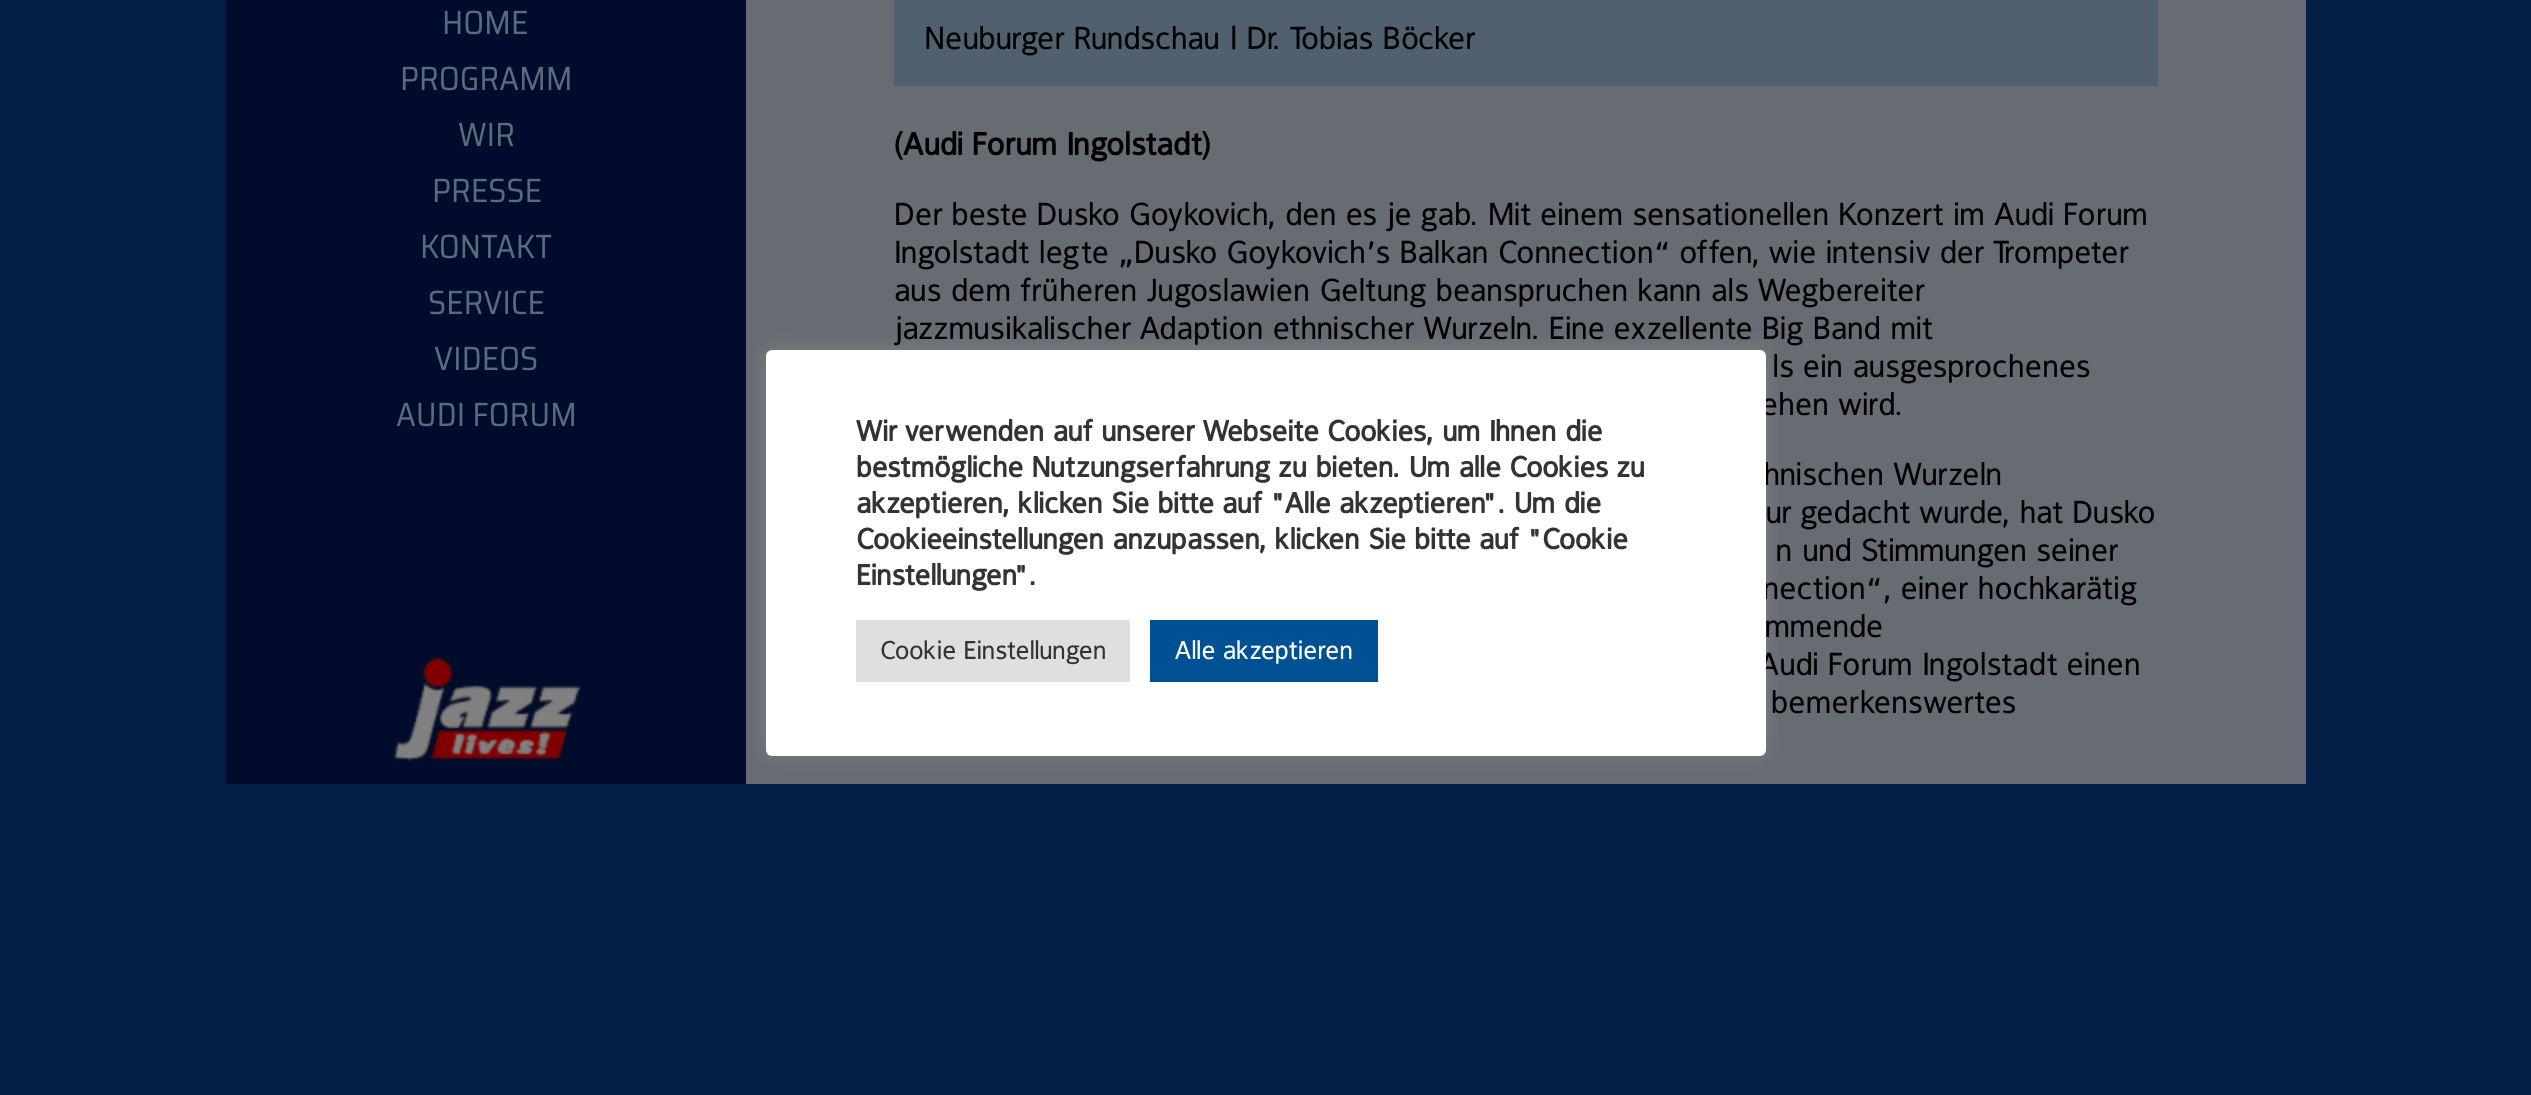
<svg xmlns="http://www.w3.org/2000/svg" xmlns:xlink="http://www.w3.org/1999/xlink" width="2531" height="1095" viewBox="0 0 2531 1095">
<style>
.cls-1{font:500 32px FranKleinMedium;fill:#000000}
.cls-2{font:bold 32px FranKleinMedium;fill:#000000}
.cls-3{font:bold 29.3px FranKleinMedium;fill:#333333}
.cls-4{font:500 26px FranKleinMedium;fill:#333333}
.cls-5{font:500 26px FranKleinMedium;fill:#ffffff}
</style>
<rect width="100%" height="100%" fill="#021e44"/>
<rect fill="#010c2d" x="226" y="0" width="520" height="784"/>
<image xlink:href="image0.png" x="444" y="10" width="83" height="25"/>
<image xlink:href="image1.png" x="402" y="66" width="168" height="25"/>
<image xlink:href="image2.png" x="459" y="122" width="55" height="24"/>
<image xlink:href="image3.png" x="434" y="178" width="107" height="25"/>
<image xlink:href="image4.png" x="422" y="234" width="130" height="25"/>
<image xlink:href="image5.png" x="429" y="290" width="115" height="25"/>
<image xlink:href="image6.png" x="434" y="346" width="103" height="25"/>
<image xlink:href="image7.png" x="396" y="402" width="178" height="25"/>
<image xlink:href="image8.png" x="393" y="657" width="188" height="104"/>
<rect fill="#676c74" x="746" y="0" width="1560" height="784"/>
<rect fill="#50606f" x="894" y="0" width="1264" height="86"/>
<rect fill="#acabab" fill-opacity="0.3" filter="blur(10px)" x="766" y="348" width="1000" height="406" rx="6"/>
<text class="cls-1" x="924" y="49">Neuburger Rundschau | Dr. Tobias Böcker</text>
<text class="cls-2" x="894" y="155">(Audi Forum Ingolstadt)</text>
<text class="cls-1"><tspan x="894" y="225">Der beste Dusko Goykovich, den es je gab. Mit einem sensationellen Konzert im Audi Forum</tspan><tspan x="894" y="263">Ingolstadt legte „Dusko Goykovich’s Balkan Connection“ offen, wie intensiv der Trompeter</tspan><tspan x="894" y="301">aus dem früheren Jugoslawien Geltung beanspruchen kann als Wegbereiter</tspan><tspan x="894" y="339">jazzmusikalischer Adaption ethnischer Wurzeln. Eine exzellente Big Band mit</tspan></text>
<text class="cls-1" x="1772" y="377">ls ein ausgesprochenes</text>
<text class="cls-1" x="1761" y="415">ehen wird.</text>
<text class="cls-1" x="1763" y="485">hnischen Wurzeln</text>
<text class="cls-1" x="1765" y="523">ur gedacht wurde, hat Dusko</text>
<text class="cls-1" x="1775" y="561">n und Stimmungen seiner</text>
<text class="cls-1" x="1762" y="599">nection“, einer hochkarätig</text>
<text class="cls-1" x="1764" y="637">mmende</text>
<text class="cls-1" x="1759" y="675">Audi Forum Ingolstadt einen</text>
<text class="cls-1" x="1771" y="713">bemerkenswertes</text>
<rect fill="#ffffff" x="766" y="350" width="1000" height="406" rx="6"/>
<text class="cls-3"><tspan x="856" y="441">Wir verwenden auf unserer Webseite Cookies, um Ihnen die</tspan><tspan x="856" y="477">bestmögliche Nutzungserfahrung zu bieten. Um alle Cookies zu</tspan><tspan x="856" y="513">akzeptieren, klicken Sie bitte auf "Alle akzeptieren". Um die</tspan><tspan x="856" y="549">Cookieeinstellungen anzupassen, klicken Sie bitte auf "Cookie</tspan><tspan x="856" y="585">Einstellungen".</tspan></text>
<rect fill="#dedfe0" x="856" y="620" width="274" height="62"/>
<text class="cls-4" x="880" y="659">Cookie Einstellungen</text>
<rect fill="#005094" x="1150" y="620" width="228" height="62"/>
<text class="cls-5" x="1175" y="659">Alle akzeptieren</text>
</svg>
